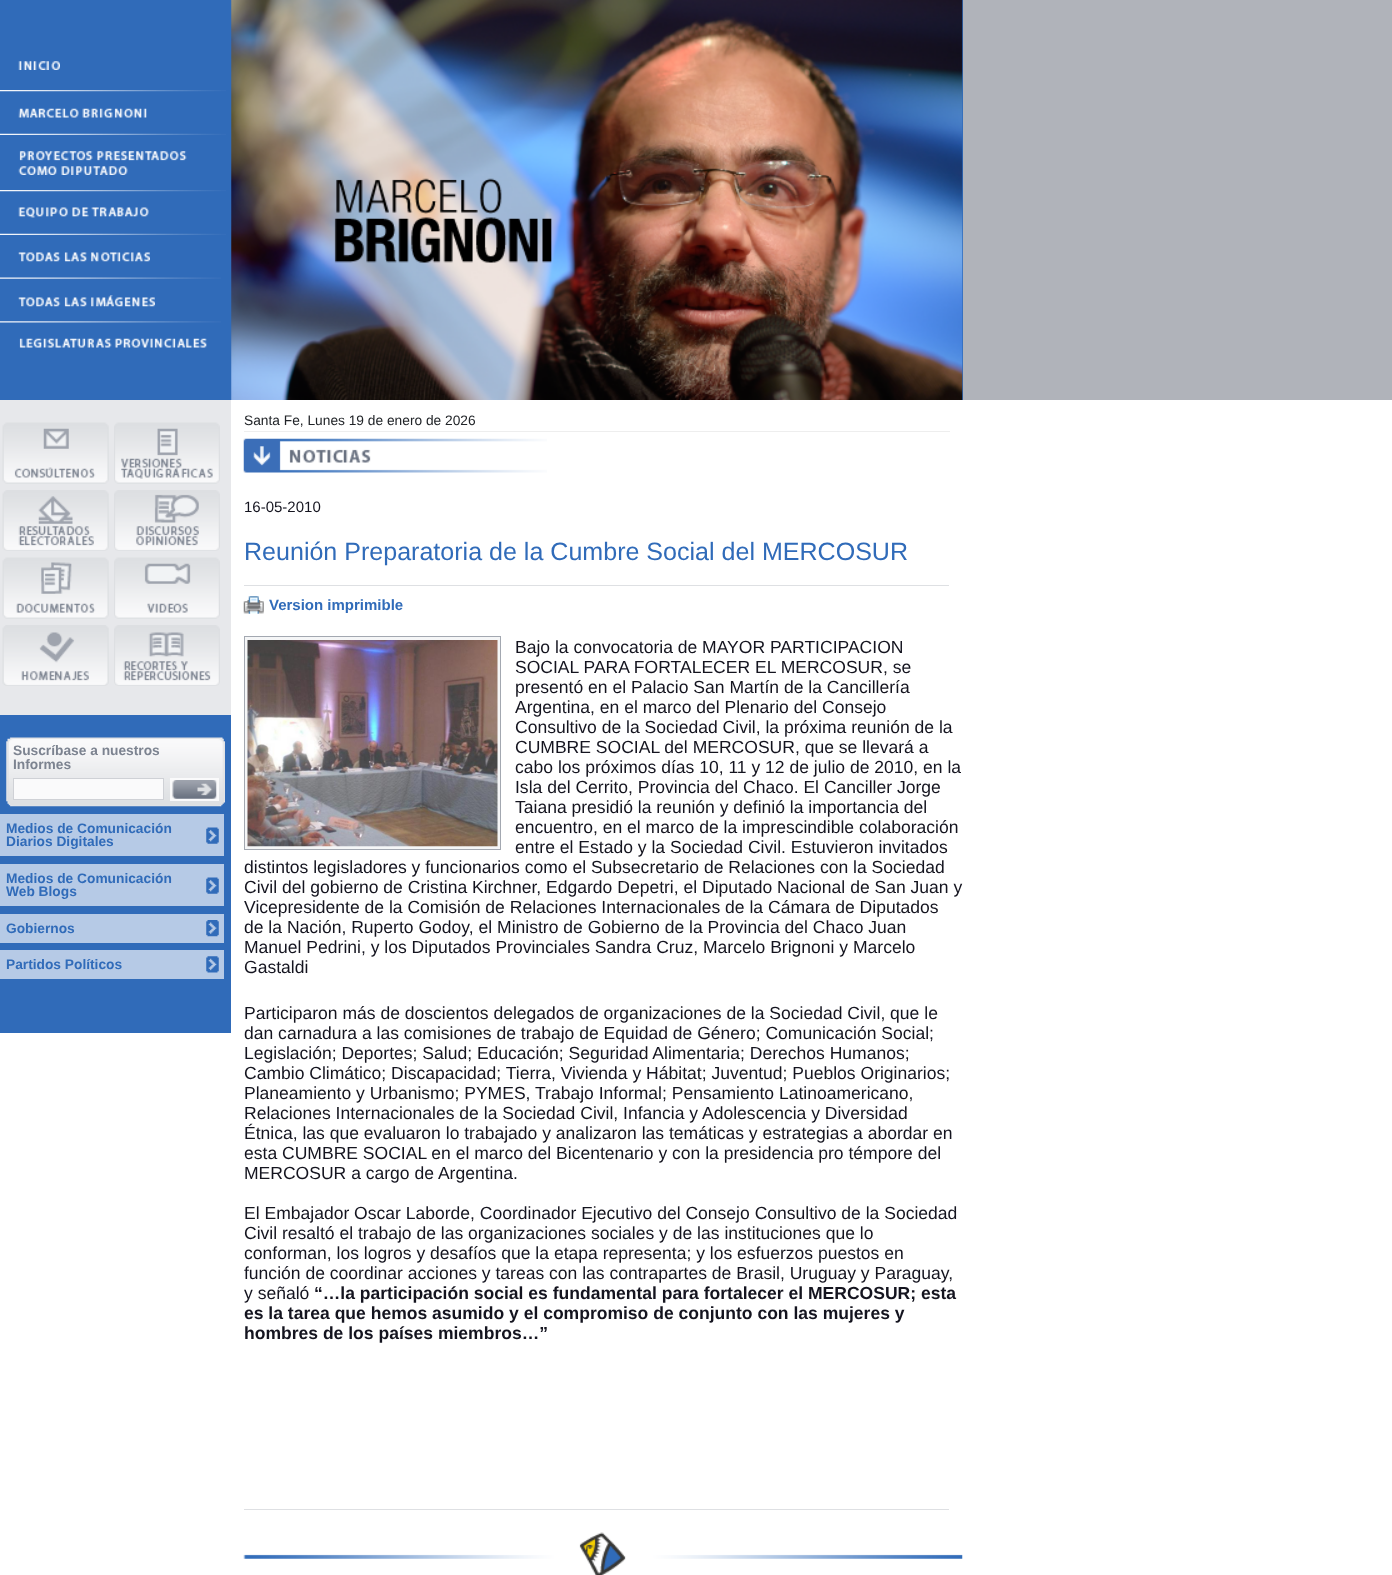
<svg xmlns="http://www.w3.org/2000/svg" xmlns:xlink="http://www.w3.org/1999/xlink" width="1392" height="1575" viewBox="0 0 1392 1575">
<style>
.cls-1{font:bold 13.75px Liberation Sans;fill:#7c8390}
.cls-2{font:bold 13.75px Liberation Sans;fill:#306bb9}
.cls-3{font:13.75px Liberation Sans;fill:#212428}
.cls-4{font:15px Liberation Sans;fill:#14141f}
.cls-5{font:25.05px Liberation Sans;fill:#306bb9}
.cls-6{font:bold 15px Liberation Sans;fill:#306bb9}
.cls-7{font:17.55px Liberation Sans;fill:#14141f}
.cls-8{font:bold 17.55px Liberation Sans;fill:#14141f}
</style>
<rect width="100%" height="100%" fill="#ffffff"/>
<rect fill="#b0b3ba" x="963" y="0" width="429" height="400"/>
<rect fill="#306bb9" x="0" y="0" width="963" height="400"/>
<image xlink:href="image0.png" x="18" y="61" width="42" height="9"/>
<image xlink:href="image1.png" x="0" y="90" width="226" height="2"/>
<image xlink:href="image2.png" x="18" y="108" width="129" height="10"/>
<image xlink:href="image3.png" x="0" y="133" width="226" height="2"/>
<image xlink:href="image4.png" x="18" y="151" width="169" height="24"/>
<image xlink:href="image1.png" x="0" y="190" width="226" height="2"/>
<image xlink:href="image5.png" x="18" y="207" width="131" height="11"/>
<image xlink:href="image3.png" x="0" y="233" width="226" height="2"/>
<image xlink:href="image6.png" x="18" y="252" width="132" height="10"/>
<image xlink:href="image7.png" x="0" y="277" width="221" height="2"/>
<image xlink:href="image8.png" x="18" y="295" width="137" height="12"/>
<image xlink:href="image9.png" x="0" y="321" width="221" height="2"/>
<image xlink:href="image10.png" x="19" y="338" width="188" height="10"/>
<image xlink:href="image11.png" x="231" y="0" width="732" height="400"/>
<rect fill="#306bb9" x="0" y="715" width="231" height="318"/>
<rect fill="#e7e8eb" x="0" y="400" width="231" height="315"/>
<image xlink:href="image12.png" x="2" y="422" width="107" height="62"/>
<image xlink:href="image13.png" x="114" y="422" width="106" height="62"/>
<image xlink:href="image14.png" x="2" y="490" width="107" height="61"/>
<image xlink:href="image15.png" x="114" y="490" width="106" height="61"/>
<image xlink:href="image16.png" x="2" y="557" width="107" height="62"/>
<image xlink:href="image17.png" x="114" y="557" width="106" height="62"/>
<image xlink:href="image18.png" x="2" y="625" width="107" height="61"/>
<image xlink:href="image19.png" x="114" y="625" width="106" height="61"/>
<image xlink:href="image20.png" x="6" y="737" width="219" height="70"/>
<rect fill="#fafafb" stroke="#cfd1d6" x="13.5" y="778.5" width="150" height="21"/>
<rect fill="#fafafb" x="170" y="778" width="49" height="23"/>
<image xlink:href="image21.png" x="172" y="780" width="45" height="19"/>
<rect fill="#b6cae6" x="0" y="814" width="224" height="42"/>
<image xlink:href="image22.png" x="206" y="827" width="13" height="17"/>
<rect fill="#b6cae6" x="0" y="864" width="224" height="42"/>
<image xlink:href="image22.png" x="206" y="877" width="13" height="17"/>
<rect fill="#b6cae6" x="0" y="914" width="224" height="29"/>
<image xlink:href="image23.png" x="206" y="920" width="13" height="17"/>
<rect fill="#b6cae6" x="0" y="950" width="224" height="29"/>
<image xlink:href="image24.png" x="206" y="956" width="13" height="17"/>
<rect fill="#eeeeee" x="244" y="431" width="706" height="1"/>
<image xlink:href="image25.png" x="243" y="438" width="304" height="35"/>
<rect fill="#dee0e3" x="244" y="585" width="705" height="1"/>
<image xlink:href="image26.png" x="243" y="596" width="21" height="18"/>
<rect fill="#f5f6f7" stroke="#a3a8b1" x="244.5" y="636.5" width="256" height="213"/>
<image xlink:href="image27.png" x="247" y="640" width="251" height="207"/>
<rect fill="#dee0e3" x="244" y="1509" width="705" height="1"/>
<image xlink:href="image28.png" x="243" y="1532" width="720" height="43"/>
<text class="cls-1"><tspan x="13" y="755">Suscríbase a nuestros</tspan><tspan x="13" y="769">Informes</tspan></text>
<text class="cls-2"><tspan x="6" y="833">Medios de Comunicación</tspan><tspan x="6" y="846">Diarios Digitales</tspan></text>
<text class="cls-2"><tspan x="6" y="883">Medios de Comunicación</tspan><tspan x="6" y="896">Web Blogs</tspan></text>
<text class="cls-2" x="6" y="933">Gobiernos</text>
<text class="cls-2" x="6" y="969">Partidos Políticos</text>
<text class="cls-3" x="244" y="425">Santa Fe, Lunes 19 de enero de 2026</text>
<text class="cls-4" x="244" y="512">16-05-2010</text>
<text class="cls-5" x="244" y="560">Reunión Preparatoria de la Cumbre Social del MERCOSUR</text>
<text class="cls-6" x="269" y="610">Version imprimible</text>
<text class="cls-7"><tspan x="515" y="653">Bajo la convocatoria de MAYOR PARTICIPACION</tspan><tspan x="515" y="673">SOCIAL PARA FORTALECER EL MERCOSUR, se</tspan><tspan x="515" y="693">presentó en el Palacio San Martín de la Cancillería</tspan><tspan x="515" y="713">Argentina, en el marco del Plenario del Consejo</tspan><tspan x="515" y="733">Consultivo de la Sociedad Civil, la próxima reunión de la</tspan><tspan x="515" y="753">CUMBRE SOCIAL del MERCOSUR, que se llevará a</tspan><tspan x="515" y="773">cabo los próximos días 10, 11 y 12 de julio de 2010, en la</tspan><tspan x="515" y="793">Isla del Cerrito, Provincia del Chaco. El Canciller Jorge</tspan><tspan x="515" y="813">Taiana presidió la reunión y definió la importancia del</tspan><tspan x="515" y="833">encuentro, en el marco de la imprescindible colaboración</tspan><tspan x="515" y="853">entre el Estado y la Sociedad Civil. Estuvieron invitados</tspan></text>
<text class="cls-7"><tspan x="244" y="873">distintos legisladores y funcionarios como el Subsecretario de Relaciones con la Sociedad</tspan><tspan x="244" y="893">Civil del gobierno de Cristina Kirchner, Edgardo Depetri, el Diputado Nacional de San Juan y</tspan><tspan x="244" y="913">Vicepresidente de la Comisión de Relaciones Internacionales de la Cámara de Diputados</tspan><tspan x="244" y="933">de la Nación, Ruperto Godoy, el Ministro de Gobierno de la Provincia del Chaco Juan</tspan><tspan x="244" y="953">Manuel Pedrini, y los Diputados Provinciales Sandra Cruz, Marcelo Brignoni y Marcelo</tspan><tspan x="244" y="973">Gastaldi</tspan></text>
<text class="cls-7"><tspan x="244" y="1019">Participaron más de doscientos delegados de organizaciones de la Sociedad Civil, que le</tspan><tspan x="244" y="1039">dan carnadura a las comisiones de trabajo de Equidad de Género; Comunicación Social;</tspan><tspan x="244" y="1059">Legislación; Deportes; Salud; Educación; Seguridad Alimentaria; Derechos Humanos;</tspan><tspan x="244" y="1079">Cambio Climático; Discapacidad; Tierra, Vivienda y Hábitat; Juventud; Pueblos Originarios;</tspan><tspan x="244" y="1099">Planeamiento y Urbanismo; PYMES, Trabajo Informal; Pensamiento Latinoamericano,</tspan><tspan x="244" y="1119">Relaciones Internacionales de la Sociedad Civil, Infancia y Adolescencia y Diversidad</tspan><tspan x="244" y="1139">Étnica, las que evaluaron lo trabajado y analizaron las temáticas y estrategias a abordar en</tspan><tspan x="244" y="1159">esta CUMBRE SOCIAL en el marco del Bicentenario y con la presidencia pro témpore del</tspan><tspan x="244" y="1179">MERCOSUR a cargo de Argentina.</tspan></text>
<text class="cls-7"><tspan x="244" y="1219">El Embajador Oscar Laborde, Coordinador Ejecutivo del Consejo Consultivo de la Sociedad</tspan><tspan x="244" y="1239">Civil resaltó el trabajo de las organizaciones sociales y de las instituciones que lo</tspan><tspan x="244" y="1259">conforman, los logros y desafíos que la etapa representa; y los esfuerzos puestos en</tspan><tspan x="244" y="1279">función de coordinar acciones y tareas con las contrapartes de Brasil, Uruguay y Paraguay,</tspan><tspan x="244" y="1299">y señaló</tspan></text>
<text class="cls-8" x="314" y="1299">“…la participación social es fundamental para fortalecer el MERCOSUR; esta</text>
<text class="cls-8"><tspan x="244" y="1319">es la tarea que hemos asumido y el compromiso de conjunto con las mujeres y</tspan><tspan x="244" y="1339">hombres de los países miembros…”</tspan></text>
</svg>
